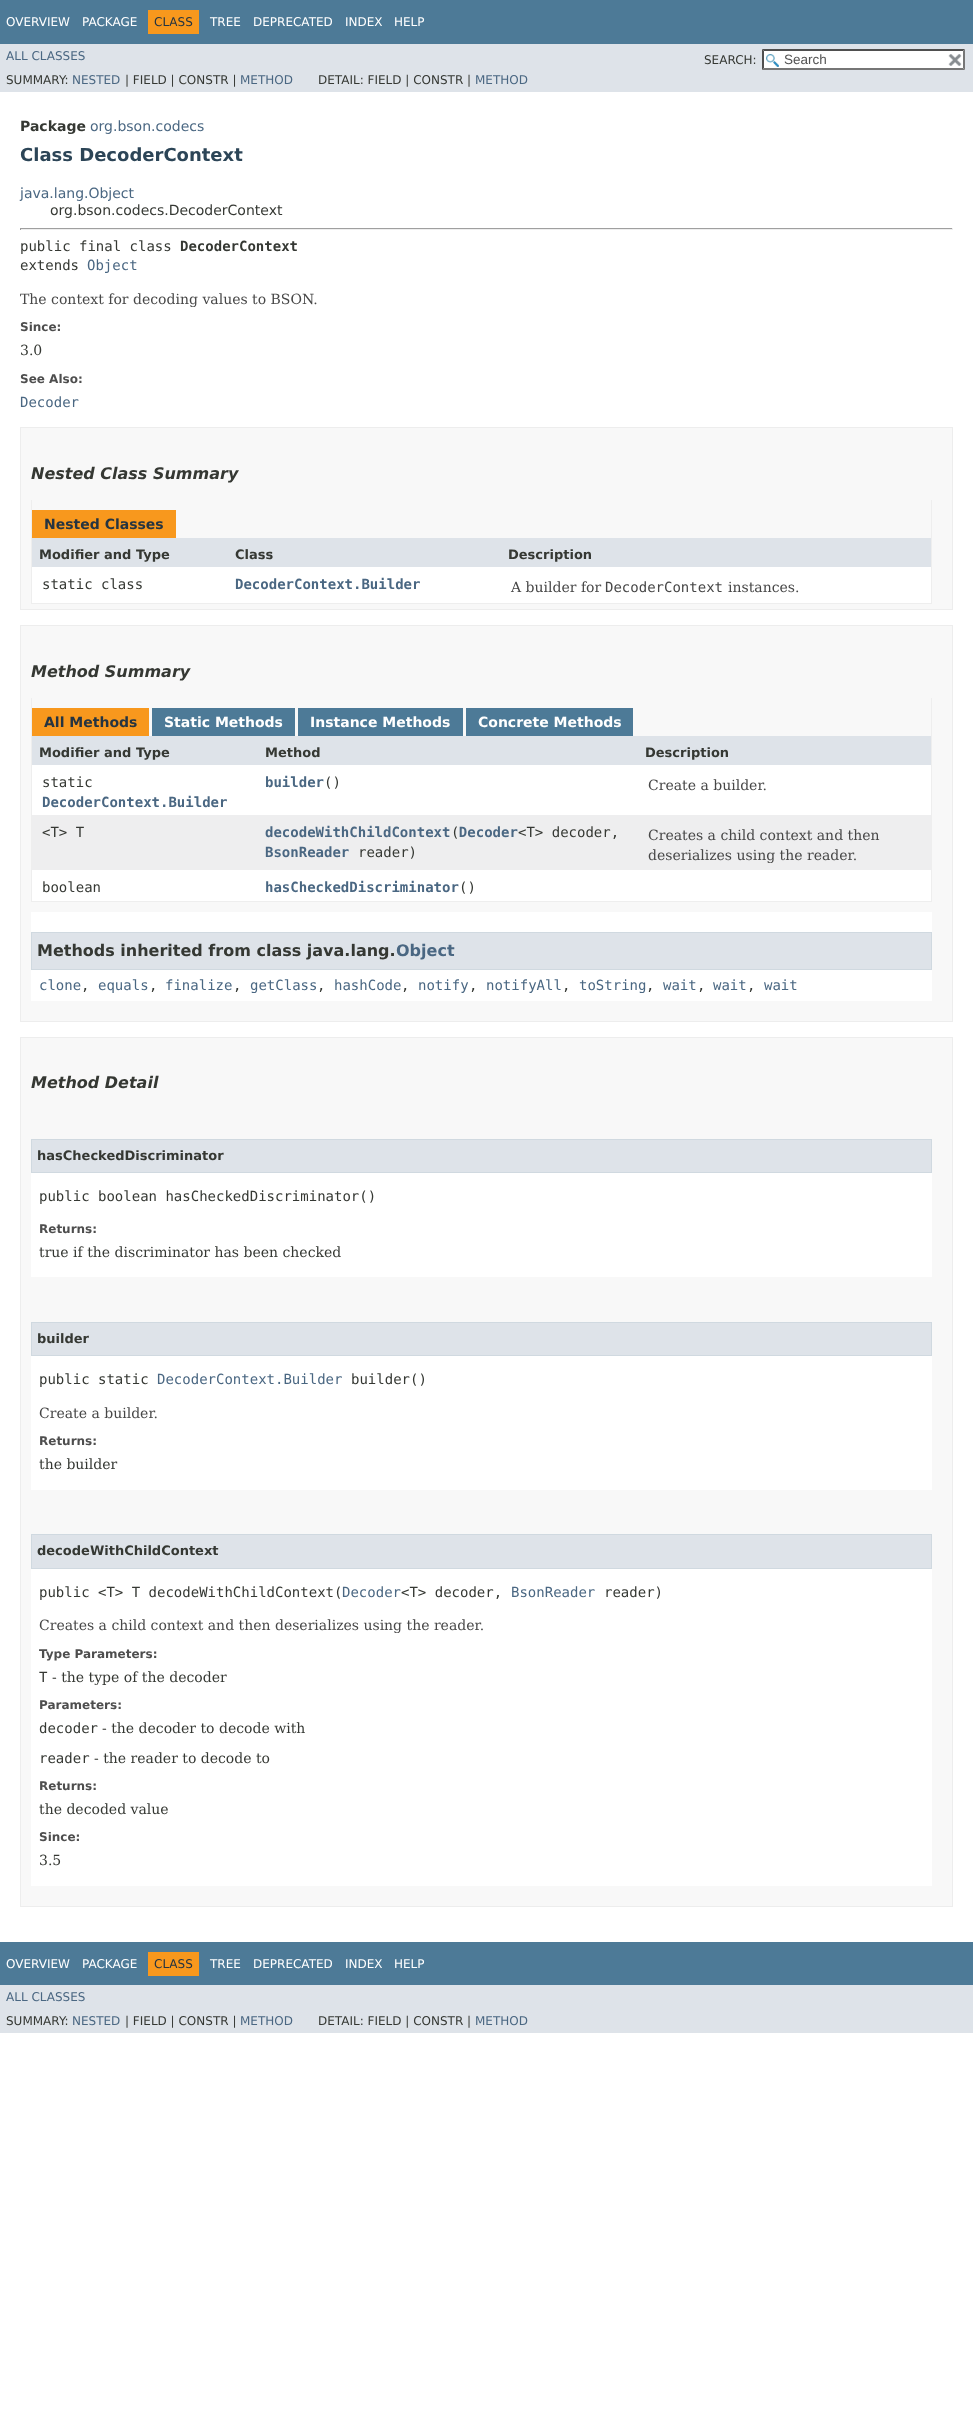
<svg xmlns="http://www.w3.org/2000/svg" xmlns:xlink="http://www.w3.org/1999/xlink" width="973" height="2421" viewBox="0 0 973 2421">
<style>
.cls-1{font:12px DejaVu Sans;fill:#ffffff}
.cls-2{font:12px DejaVu Sans;fill:#253441}
.cls-3{font:12px DejaVu Sans;fill:#4a6782}
.cls-4{font:12px DejaVu Sans;fill:#353833}
.cls-5{font:13.5px Liberation Sans;fill:#545454}
.cls-6{font:bold 14px DejaVu Sans;fill:#353833}
.cls-7{font:14px DejaVu Sans;fill:#4a6782}
.cls-8{font:bold 18px DejaVu Sans;fill:#2c4557}
.cls-9{font:14px DejaVu Sans;fill:#353833}
.cls-10{font:14px DejaVu Sans Mono;fill:#353833}
.cls-11{font:bold 14px DejaVu Sans Mono;fill:#353833}
.cls-12{font:14px DejaVu Sans Mono;fill:#4a6782}
.cls-13{font:14px DejaVu Serif;fill:#474747}
.cls-14{font:bold 12px DejaVu Sans;fill:#4e4e4e}
.cls-15{font:14px DejaVu Serif;fill:#353833}
.cls-16{font:italic bold 16px DejaVu Sans;fill:#353833}
.cls-17{font:bold 14px DejaVu Sans;fill:#253441}
.cls-18{font:bold 13px DejaVu Sans;fill:#353833}
.cls-19{font:bold 14px DejaVu Sans Mono;fill:#4a6782}
.cls-20{font:14px DejaVu Sans Mono;fill:#474747}
.cls-21{font:bold 14px DejaVu Sans;fill:#ffffff}
.cls-22{font:bold 16px DejaVu Sans;fill:#353833}
.cls-23{font:bold 16px DejaVu Sans;fill:#4a6782}
</style>
<rect width="100%" height="100%" fill="#ffffff"/>
<rect fill="#4d7a97" x="0" y="0" width="973" height="44"/>
<rect fill="#f8981d" x="148" y="10" width="51" height="24"/>
<rect fill="#dee3e9" x="0" y="44" width="973" height="48"/>
<rect fill="#ffffff" x="762" y="49" width="203" height="21"/>
<image xlink:href="image0.png" x="766" y="54" width="13" height="13"/>
<path fill="#4f4f4f" d="M762 49H965L963 51H764Z"/>
<path fill="#767676" d="M965 49V70L963 68V51Z"/>
<path fill="#767676" d="M965 70H762L764 68H963Z"/>
<path fill="#4f4f4f" d="M762 70V49L764 51V68Z"/>
<image xlink:href="image1.png" x="948" y="54" width="14" height="12"/>
<rect fill="#9f9f9f" x="20" y="228" width="933" height="1"/>
<rect fill="#eeeeee" x="952" y="228" width="1" height="2"/>
<rect fill="#eeeeee" x="20" y="229" width="933" height="1"/>
<rect fill="#9f9f9f" x="20" y="228" width="1" height="2"/>
<rect fill="#f8f8f8" stroke="#ededed" x="20.5" y="427.5" width="932" height="182"/>
<rect fill="#eeeeee" x="931" y="500" width="1" height="104"/>
<rect fill="#eeeeee" x="31" y="603" width="901" height="1"/>
<rect fill="#eeeeee" x="31" y="500" width="1" height="104"/>
<rect fill="#f8981d" x="32" y="510" width="144" height="28"/>
<rect fill="#dee3e9" x="32" y="538" width="899" height="29"/>
<rect fill="#ffffff" x="32" y="567" width="899" height="36"/>
<rect fill="#f8f8f8" stroke="#ededed" x="20.5" y="625.5" width="932" height="396"/>
<rect fill="#eeeeee" x="931" y="698" width="1" height="204"/>
<rect fill="#eeeeee" x="31" y="901" width="901" height="1"/>
<rect fill="#eeeeee" x="31" y="698" width="1" height="204"/>
<rect fill="#f8981d" x="32" y="708" width="117" height="28"/>
<rect fill="#4d7a97" x="152" y="708" width="143" height="28"/>
<rect fill="#4d7a97" x="298" y="708" width="165" height="28"/>
<rect fill="#4d7a97" x="466" y="708" width="167" height="28"/>
<rect fill="#dee3e9" x="32" y="736" width="899" height="29"/>
<rect fill="#ffffff" x="32" y="765" width="899" height="50"/>
<rect fill="#eeeeef" x="32" y="815" width="899" height="55"/>
<rect fill="#ffffff" x="32" y="870" width="899" height="31"/>
<rect fill="#ffffff" x="31" y="912" width="901" height="89"/>
<rect fill="#dee3e9" stroke="#d0d9e0" x="31.5" y="932.5" width="900" height="37"/>
<rect fill="#f8f8f8" stroke="#ededed" x="20.5" y="1037.5" width="932" height="869"/>
<rect fill="#ffffff" x="31" y="1173" width="901" height="104"/>
<rect fill="#dee3e9" stroke="#d0d9e0" x="31.5" y="1139.5" width="900" height="33"/>
<rect fill="#ffffff" x="31" y="1356" width="901" height="134"/>
<rect fill="#dee3e9" stroke="#d0d9e0" x="31.5" y="1322.5" width="900" height="33"/>
<rect fill="#ffffff" x="31" y="1569" width="901" height="317"/>
<rect fill="#dee3e9" stroke="#d0d9e0" x="31.5" y="1534.5" width="900" height="34"/>
<rect fill="#4d7a97" x="0" y="1942" width="973" height="43"/>
<rect fill="#f8981d" x="148" y="1952" width="51" height="24"/>
<rect fill="#dee3e9" x="0" y="1985" width="973" height="48"/>
<text class="cls-1" x="6" y="26">OVERVIEW</text>
<text class="cls-1" x="82" y="26">PACKAGE</text>
<text class="cls-2" x="154" y="26">CLASS</text>
<text class="cls-1" x="210" y="26">TREE</text>
<text class="cls-1" x="253" y="26">DEPRECATED</text>
<text class="cls-1" x="345" y="26">INDEX</text>
<text class="cls-1" x="394" y="26">HELP</text>
<text class="cls-3" x="6" y="60">ALL CLASSES</text>
<text class="cls-4" x="704" y="64">SEARCH:</text>
<text class="cls-5" x="784" y="64">Search</text>
<text class="cls-4" x="6" y="84">SUMMARY:</text>
<text class="cls-3" x="72" y="84">NESTED</text>
<text class="cls-4" x="125" y="84">| FIELD | CONSTR |</text>
<text class="cls-3" x="240" y="84">METHOD</text>
<text class="cls-4" x="318" y="84">DETAIL: FIELD | CONSTR |</text>
<text class="cls-3" x="475" y="84">METHOD</text>
<text class="cls-6" x="20" y="131">Package</text>
<text class="cls-7" x="90" y="131">org.bson.codecs</text>
<text class="cls-8" x="20" y="161">Class DecoderContext</text>
<text class="cls-7" x="20" y="198">java.lang.Object</text>
<text class="cls-9" x="50" y="215">org.bson.codecs.DecoderContext</text>
<text class="cls-10" x="20" y="251">public final class</text>
<text class="cls-11" x="180" y="251">DecoderContext</text>
<text class="cls-10" x="20" y="270">extends</text>
<text class="cls-12" x="87" y="270">Object</text>
<text class="cls-13" x="20" y="304">The context for decoding values to BSON.</text>
<text class="cls-14" x="20" y="331">Since:</text>
<text class="cls-15" x="20" y="355">3.0</text>
<text class="cls-14" x="20" y="383">See Also:</text>
<text class="cls-12" x="20" y="407">Decoder</text>
<text class="cls-16" x="31" y="479">Nested Class Summary</text>
<text class="cls-17" x="44" y="529">Nested Classes</text>
<text class="cls-18" x="39" y="559">Modifier and Type</text>
<text class="cls-18" x="235" y="559">Class</text>
<text class="cls-18" x="508" y="559">Description</text>
<text class="cls-10" x="42" y="589">static class</text>
<text class="cls-19" x="235" y="589">DecoderContext.Builder</text>
<text class="cls-13" x="511" y="592">A builder for</text>
<text class="cls-20" x="605" y="592">DecoderContext</text>
<text class="cls-13" x="728" y="592">instances.</text>
<text class="cls-16" x="31" y="677">Method Summary</text>
<text class="cls-17" x="44" y="727">All Methods</text>
<text class="cls-21" x="164" y="727">Static Methods</text>
<text class="cls-21" x="310" y="727">Instance Methods</text>
<text class="cls-21" x="478" y="727">Concrete Methods</text>
<text class="cls-18" x="39" y="757">Modifier and Type</text>
<text class="cls-18" x="265" y="757">Method</text>
<text class="cls-18" x="645" y="757">Description</text>
<text class="cls-10" x="42" y="787">static</text>
<text class="cls-19" x="42" y="807">DecoderContext.Builder</text>
<text class="cls-19" x="265" y="787">builder</text>
<text class="cls-10" x="324" y="787">()</text>
<text class="cls-13" x="648" y="790">Create a builder.</text>
<text class="cls-10" x="42" y="837">&lt;T&gt; T</text>
<text class="cls-19" x="265" y="837">decodeWithChildContext Decoder</text>
<text class="cls-10" x="451" y="837">(</text>
<text class="cls-10" x="518" y="837">&lt;T&gt; decoder,</text>
<text class="cls-19" x="265" y="857">BsonReader</text>
<text class="cls-10" x="358" y="857">reader)</text>
<text class="cls-13"><tspan x="648" y="840">Creates a child context and then</tspan><tspan x="648" y="860">deserializes using the reader.</tspan></text>
<text class="cls-10" x="42" y="892">boolean</text>
<text class="cls-19" x="265" y="892">hasCheckedDiscriminator</text>
<text class="cls-10" x="459" y="892">()</text>
<text class="cls-22" x="37" y="956">Methods inherited from class java.lang.</text>
<text class="cls-23" x="396" y="956">Object</text>
<text class="cls-12" x="39" y="990">clone</text>
<text class="cls-10" x="81" y="990">,</text>
<text class="cls-12" x="98" y="990">equals</text>
<text class="cls-10" x="149" y="990">,</text>
<text class="cls-12" x="165" y="990">finalize</text>
<text class="cls-10" x="233" y="990">,</text>
<text class="cls-12" x="250" y="990">getClass</text>
<text class="cls-10" x="317" y="990">,</text>
<text class="cls-12" x="334" y="990">hashCode</text>
<text class="cls-10" x="401" y="990">,</text>
<text class="cls-12" x="418" y="990">notify</text>
<text class="cls-10" x="469" y="990">,</text>
<text class="cls-12" x="486" y="990">notifyAll</text>
<text class="cls-10" x="562" y="990">,</text>
<text class="cls-12" x="579" y="990">toString</text>
<text class="cls-10" x="646" y="990">,</text>
<text class="cls-12" x="663" y="990">wait</text>
<text class="cls-10" x="697" y="990">,</text>
<text class="cls-12" x="713" y="990">wait</text>
<text class="cls-10" x="747" y="990">,</text>
<text class="cls-12" x="764" y="990">wait</text>
<text class="cls-16" x="31" y="1088">Method Detail</text>
<text class="cls-18" x="37" y="1160">hasCheckedDiscriminator</text>
<text class="cls-10" x="39" y="1201">public boolean hasCheckedDiscriminator()</text>
<text class="cls-14" x="39" y="1233">Returns:</text>
<text class="cls-15" x="39" y="1257">true if the discriminator has been checked</text>
<text class="cls-18" x="37" y="1343">builder</text>
<text class="cls-10" x="39" y="1384">public static</text>
<text class="cls-12" x="157" y="1384">DecoderContext.Builder</text>
<text class="cls-10" x="351" y="1384">builder()</text>
<text class="cls-13" x="39" y="1418">Create a builder.</text>
<text class="cls-14" x="39" y="1445">Returns:</text>
<text class="cls-15" x="39" y="1469">the builder</text>
<text class="cls-18" x="37" y="1555">decodeWithChildContext</text>
<text class="cls-10" x="39" y="1597">public &lt;T&gt; T decodeWithChildContext(</text>
<text class="cls-12" x="342" y="1597">Decoder</text>
<text class="cls-10" x="401" y="1597">&lt;T&gt; decoder,</text>
<text class="cls-12" x="511" y="1597">BsonReader</text>
<text class="cls-10" x="604" y="1597">reader)</text>
<text class="cls-13" x="39" y="1630">Creates a child context and then deserializes using the reader.</text>
<text class="cls-14" x="39" y="1658">Type Parameters:</text>
<text class="cls-10" x="39" y="1682">T</text>
<text class="cls-15" x="52" y="1682">- the type of the decoder</text>
<text class="cls-14" x="39" y="1709">Parameters:</text>
<text class="cls-10" x="39" y="1733">decoder</text>
<text class="cls-15" x="102" y="1733">- the decoder to decode with</text>
<text class="cls-10" x="39" y="1763">reader</text>
<text class="cls-15" x="94" y="1763">- the reader to decode to</text>
<text class="cls-14" x="39" y="1790">Returns:</text>
<text class="cls-15" x="39" y="1814">the decoded value</text>
<text class="cls-14" x="39" y="1841">Since:</text>
<text class="cls-15" x="39" y="1865">3.5</text>
<text class="cls-1" x="6" y="1968">OVERVIEW</text>
<text class="cls-1" x="82" y="1968">PACKAGE</text>
<text class="cls-2" x="154" y="1968">CLASS</text>
<text class="cls-1" x="210" y="1968">TREE</text>
<text class="cls-1" x="253" y="1968">DEPRECATED</text>
<text class="cls-1" x="345" y="1968">INDEX</text>
<text class="cls-1" x="394" y="1968">HELP</text>
<text class="cls-3" x="6" y="2001">ALL CLASSES</text>
<text class="cls-4" x="6" y="2025">SUMMARY:</text>
<text class="cls-3" x="72" y="2025">NESTED</text>
<text class="cls-4" x="125" y="2025">| FIELD | CONSTR |</text>
<text class="cls-3" x="240" y="2025">METHOD</text>
<text class="cls-4" x="318" y="2025">DETAIL: FIELD | CONSTR |</text>
<text class="cls-3" x="475" y="2025">METHOD</text>
</svg>
